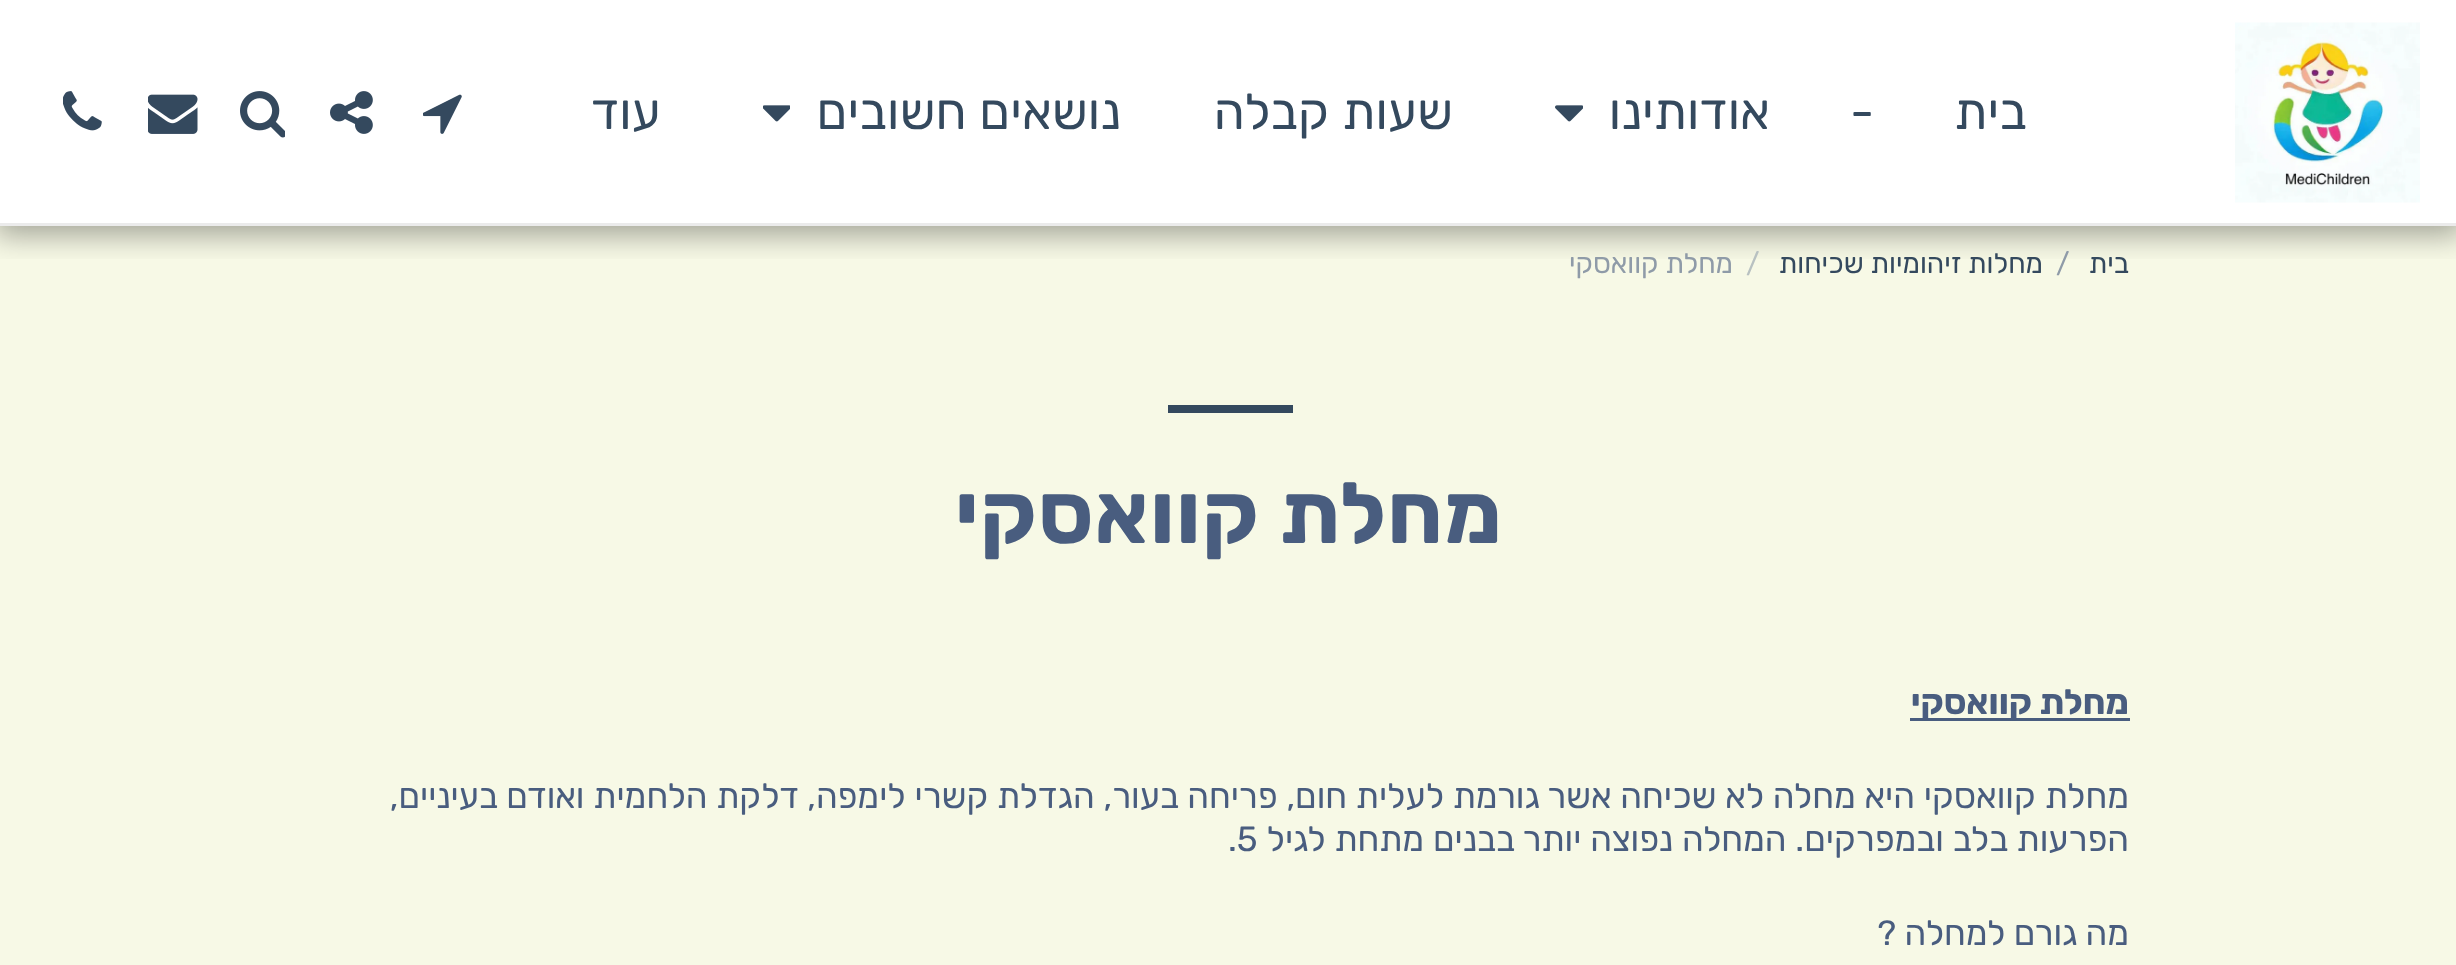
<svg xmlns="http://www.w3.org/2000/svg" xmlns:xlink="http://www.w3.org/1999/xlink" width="2456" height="965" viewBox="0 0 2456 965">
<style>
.cls-1{font:50px Rubik;letter-spacing:0.25px;direction:rtl;fill:#34495e}
.cls-2{font:50px Rubik;letter-spacing:0.25px;fill:#34495e}
.cls-3{font:28px Rubik;direction:rtl;fill:#34495e}
.cls-4{font:28px Rubik;fill:#8f9ba8}
.cls-5{font:28px Rubik;fill:#b8c1c1}
.cls-6{font:28px Rubik;direction:rtl;fill:#8f9ba8}
.cls-7{font:bold 85.5px Rubik;letter-spacing:1.25px;direction:rtl;fill:#495d7f}
.cls-8{font:bold 35px Rubik;direction:rtl;fill:#495d7f}
.cls-9{font:35px Rubik;direction:rtl;fill:#495d7f}
.cls-10{font:35px Rubik;fill:#495d7f}
</style>
<defs>
<clipPath id="clip1"><rect x="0" y="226" width="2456" height="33"/></clipPath>
</defs>
<rect width="100%" height="100%" fill="#ffffff"/>
<rect fill="#f7f9e6" x="0" y="226" width="2456" height="739"/>
<g clip-path="url(#clip1)">
<rect fill="#000000" fill-opacity="0.35" filter="blur(15px)" x="-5" y="0" width="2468" height="235"/>
</g>
<rect fill="#ebebeb" x="0" y="223" width="2456" height="3"/>
<image xlink:href="image0.png" x="2235" y="22" width="185" height="181"/>
<image xlink:href="image1.png" x="1555" y="105" width="28" height="17"/>
<image xlink:href="image2.png" x="763" y="105" width="27" height="17"/>
<image xlink:href="image3.png" x="423" y="94" width="39" height="40"/>
<image xlink:href="image4.png" x="330" y="91" width="43" height="43"/>
<image xlink:href="image5.png" x="240" y="91" width="45" height="47"/>
<image xlink:href="image6.png" x="148" y="94" width="50" height="40"/>
<image xlink:href="image7.png" x="63" y="91" width="39" height="40"/>
<rect fill="#34495e" x="1168" y="405" width="125" height="8"/>
<rect fill="#495d7f" x="1910" y="718" width="220" height="3"/>
<text class="cls-1" x="2027" y="129">בית</text>
<text class="cls-2" x="1850" y="129">-</text>
<text class="cls-1" x="1770" y="129">אודותינו</text>
<text class="cls-1" x="1453" y="129">שעות קבלה</text>
<text class="cls-1" x="1121" y="129">נושאים חשובים</text>
<text class="cls-1" x="661" y="129">עוד</text>
<text class="cls-3" x="2129" y="273">בית</text>
<text class="cls-4" x="2056" y="273">/</text>
<text class="cls-3" x="2043" y="273">מחלות זיהומיות שכיחות</text>
<text class="cls-5" x="1746" y="273">/</text>
<text class="cls-6" x="1733" y="273">מחלת קוואסקי</text>
<text class="cls-7" x="1503" y="543">מחלת קוואסקי</text>
<text class="cls-8" x="2129" y="714">מחלת קוואסקי</text>
<text class="cls-9"><tspan x="2129" y="808" word-spacing="0.2">מחלת קוואסקי היא מחלה לא שכיחה אשר גורמת לעלית חום, פריחה בעור, הגדלת קשרי לימפה, דלקת הלחמית ואודם בעיניים,</tspan><tspan x="2129" y="851" word-spacing="0.25">הפרעות בלב ובמפרקים. המחלה נפוצה יותר בבנים מתחת לגיל</tspan></text>
<text class="cls-10" x="1228" y="851">.5</text>
<text class="cls-9" x="2129" y="945">מה גורם למחלה ?</text>
</svg>
